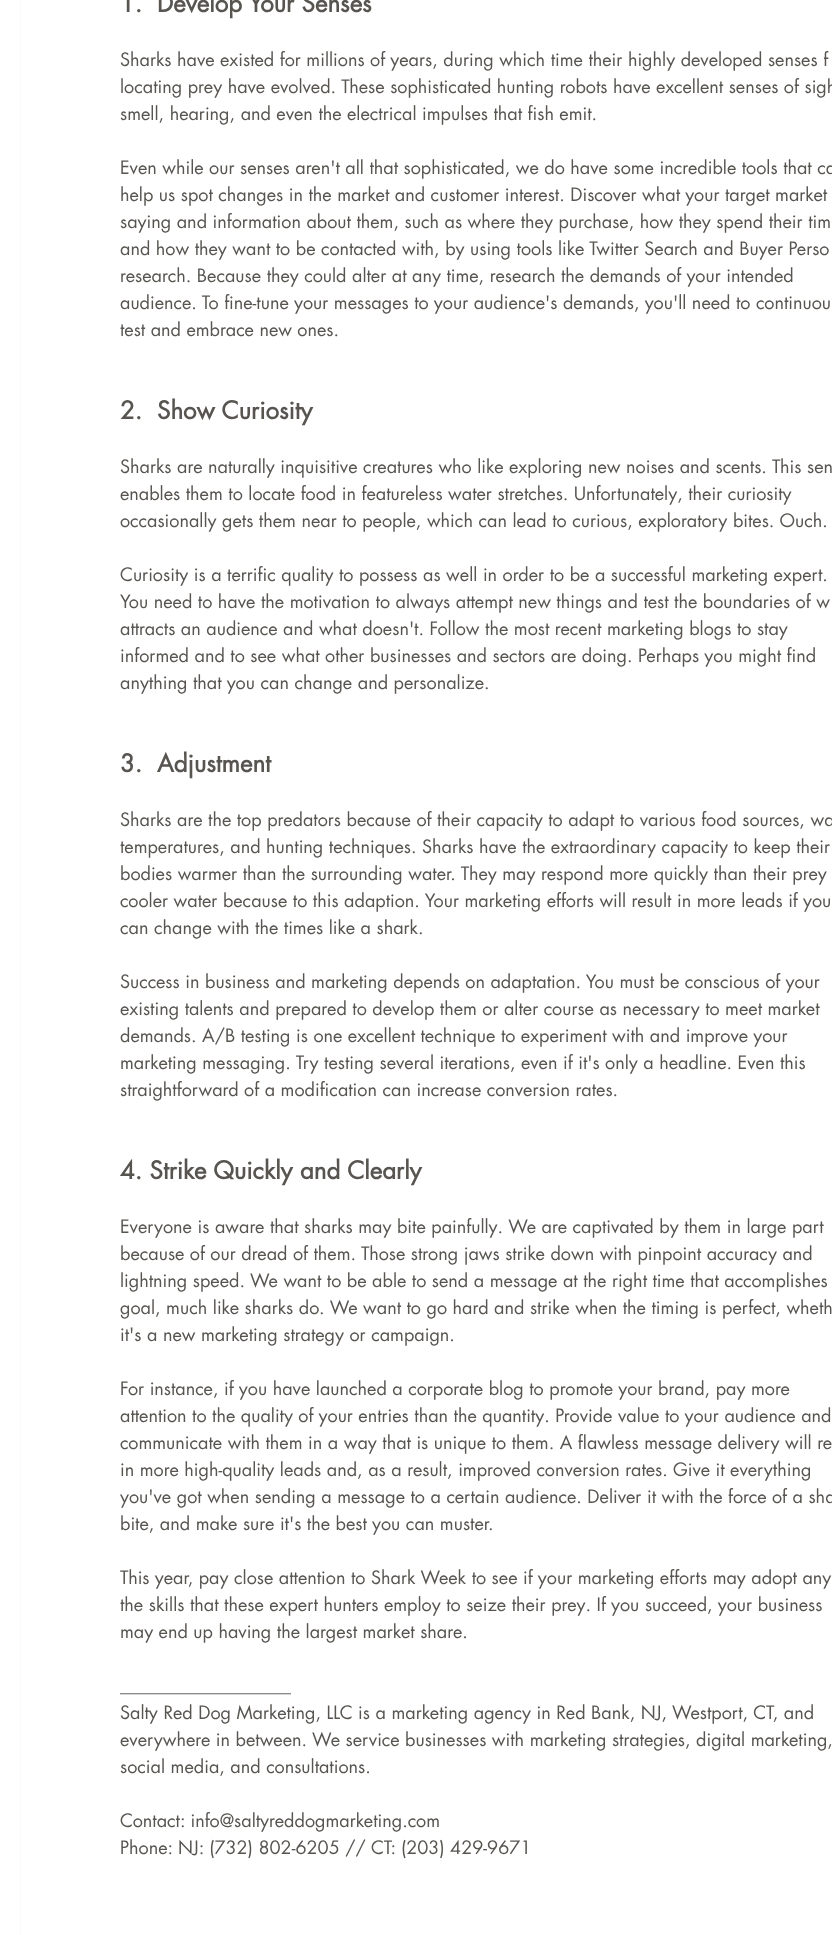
<svg xmlns="http://www.w3.org/2000/svg" xmlns:xlink="http://www.w3.org/1999/xlink" width="832" height="1935" viewBox="0 0 832 1935">
<style>
.cls-1{font:bold 24px futura;fill:#585551}
.cls-2{font:18px futura;fill:#585551}
</style>
<rect width="100%" height="100%" fill="#ffffff"/>
<rect fill="none" stroke="#fafafa" x="20.5" y="-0.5" width="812" height="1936"/>
<text class="cls-1" xml:space="preserve" x="120" y="12">1.  Develop Your Senses</text>
<text class="cls-2"><tspan x="120" y="66">Sharks have existed for millions of years, during which time their highly developed senses f</tspan><tspan x="120" y="93">locating prey have evolved. These sophisticated hunting robots have excellent senses of sigh</tspan><tspan x="120" y="120">smell, hearing, and even the electrical impulses that fish emit.</tspan></text>
<text class="cls-2"><tspan x="120" y="174">Even while our senses aren't all that sophisticated, we do have some incredible tools that ca</tspan><tspan x="120" y="201">help us spot changes in the market and customer interest. Discover what your target market</tspan><tspan x="120" y="228">saying and information about them, such as where they purchase, how they spend their tim</tspan><tspan x="120" y="255">and how they want to be contacted with, by using tools like Twitter Search and Buyer Perso</tspan><tspan x="120" y="282">research. Because they could alter at any time, research the demands of your intended</tspan><tspan x="120" y="309">audience. To fine-tune your messages to your audience's demands, you'll need to continuou</tspan><tspan x="120" y="336">test and embrace new ones.</tspan></text>
<text class="cls-1" xml:space="preserve" x="120" y="419">2.  Show Curiosity</text>
<text class="cls-2"><tspan x="120" y="473">Sharks are naturally inquisitive creatures who like exploring new noises and scents. This sen</tspan><tspan x="120" y="500">enables them to locate food in featureless water stretches. Unfortunately, their curiosity</tspan><tspan x="120" y="527">occasionally gets them near to people, which can lead to curious, exploratory bites. Ouch.</tspan></text>
<text class="cls-2"><tspan x="120" y="581">Curiosity is a terrific quality to possess as well in order to be a successful marketing expert.</tspan><tspan x="120" y="608">You need to have the motivation to always attempt new things and test the boundaries of w</tspan><tspan x="120" y="635">attracts an audience and what doesn't. Follow the most recent marketing blogs to stay</tspan><tspan x="120" y="662">informed and to see what other businesses and sectors are doing. Perhaps you might find</tspan><tspan x="120" y="689">anything that you can change and personalize.</tspan></text>
<text class="cls-1" xml:space="preserve" x="120" y="772">3.  Adjustment</text>
<text class="cls-2"><tspan x="120" y="826">Sharks are the top predators because of their capacity to adapt to various food sources, wa</tspan><tspan x="120" y="853">temperatures, and hunting techniques. Sharks have the extraordinary capacity to keep their</tspan><tspan x="120" y="880">bodies warmer than the surrounding water. They may respond more quickly than their prey</tspan><tspan x="120" y="907">cooler water because to this adaption. Your marketing efforts will result in more leads if you</tspan><tspan x="120" y="934">can change with the times like a shark.</tspan></text>
<text class="cls-2"><tspan x="120" y="988">Success in business and marketing depends on adaptation. You must be conscious of your</tspan><tspan x="120" y="1015">existing talents and prepared to develop them or alter course as necessary to meet market</tspan><tspan x="120" y="1042">demands. A/B testing is one excellent technique to experiment with and improve your</tspan><tspan x="120" y="1069">marketing messaging. Try testing several iterations, even if it's only a headline. Even this</tspan><tspan x="120" y="1096">straightforward of a modification can increase conversion rates.</tspan></text>
<text class="cls-1" x="120" y="1179">4. Strike Quickly and Clearly</text>
<text class="cls-2"><tspan x="120" y="1233">Everyone is aware that sharks may bite painfully. We are captivated by them in large part</tspan><tspan x="120" y="1260">because of our dread of them. Those strong jaws strike down with pinpoint accuracy and</tspan><tspan x="120" y="1287">lightning speed. We want to be able to send a message at the right time that accomplishes</tspan><tspan x="120" y="1314">goal, much like sharks do. We want to go hard and strike when the timing is perfect, wheth</tspan><tspan x="120" y="1341">it's a new marketing strategy or campaign.</tspan></text>
<text class="cls-2"><tspan x="120" y="1395">For instance, if you have launched a corporate blog to promote your brand, pay more</tspan><tspan x="120" y="1422">attention to the quality of your entries than the quantity. Provide value to your audience and</tspan><tspan x="120" y="1449">communicate with them in a way that is unique to them. A flawless message delivery will re</tspan><tspan x="120" y="1476">in more high-quality leads and, as a result, improved conversion rates. Give it everything</tspan><tspan x="120" y="1503">you've got when sending a message to a certain audience. Deliver it with the force of a sha</tspan><tspan x="120" y="1530">bite, and make sure it's the best you can muster.</tspan></text>
<text class="cls-2"><tspan x="120" y="1584">This year, pay close attention to Shark Week to see if your marketing efforts may adopt any</tspan><tspan x="120" y="1611">the skills that these expert hunters employ to seize their prey. If you succeed, your business</tspan><tspan x="120" y="1638">may end up having the largest market share.</tspan></text>
<text class="cls-2"><tspan x="120" y="1692">___________________</tspan><tspan x="120" y="1719">Salty Red Dog Marketing, LLC is a marketing agency in Red Bank, NJ, Westport, CT, and</tspan><tspan x="120" y="1746">everywhere in between. We service businesses with marketing strategies, digital marketing,</tspan><tspan x="120" y="1773">social media, and consultations.</tspan></text>
<text class="cls-2"><tspan x="120" y="1827">Contact: info@saltyreddogmarketing.com</tspan><tspan x="120" y="1854">Phone: NJ: (732) 802-6205 // CT: (203) 429-9671</tspan></text>
</svg>
